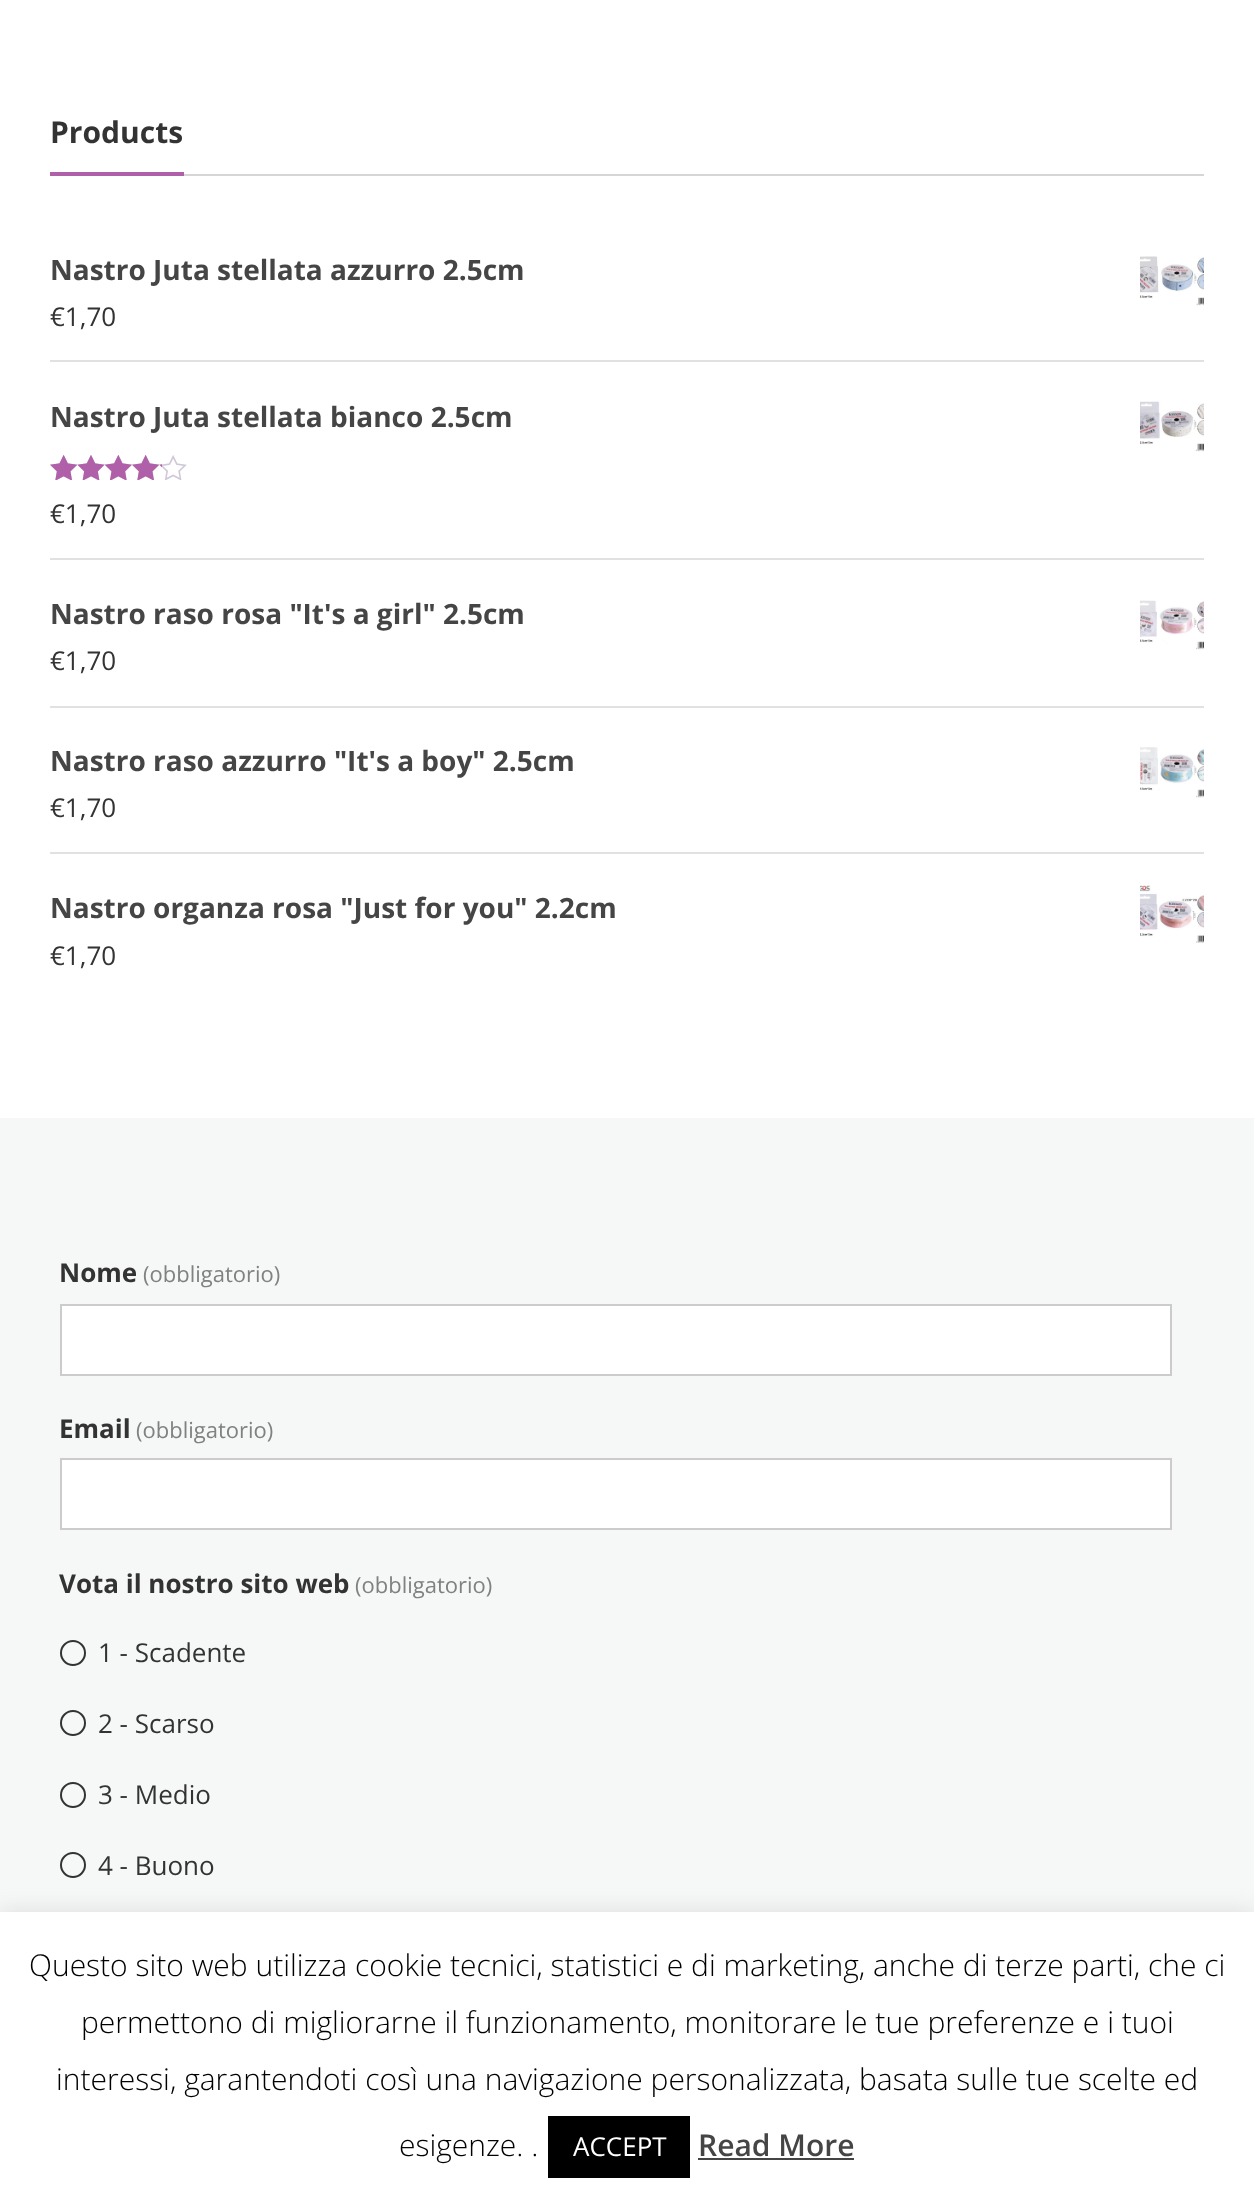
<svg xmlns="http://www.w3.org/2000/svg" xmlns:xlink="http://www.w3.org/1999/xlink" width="1254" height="2201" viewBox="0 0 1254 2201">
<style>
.cls-1{font:bold 30px Open Sans;fill:#333333}
.cls-2{font:bold 28px Open Sans;fill:#454545}
.cls-3{font:26px Open Sans;fill:#333333}
.cls-4{font:bold 26px Open Sans;fill:#333333}
.cls-5{font:22px Open Sans;fill:#818181}
.cls-6{font:300 30px Open Sans;fill:#000000}
.cls-7{font:26px Open Sans;fill:#ffffff}
.cls-8{font:600 30px Open Sans;fill:#454545}
</style>
<rect width="100%" height="100%" fill="#ffffff"/>
<rect fill="#d6d6d6" x="184" y="174" width="1020" height="2"/>
<rect fill="#af60a8" x="50" y="172" width="134" height="4"/>
<rect fill="#e1e1e1" x="50" y="360" width="1154" height="2"/>
<image xlink:href="image0.png" x="1140" y="256" width="64" height="50"/>
<rect fill="#e1e1e1" x="50" y="558" width="1154" height="2"/>
<image xlink:href="image1.png" x="1140" y="401" width="64" height="51"/>
<image xlink:href="image3.png" x="50" y="455" width="137" height="25"/>
<image xlink:href="image2.png" x="50" y="454" width="112" height="26"/>
<rect fill="#e1e1e1" x="50" y="706" width="1154" height="2"/>
<image xlink:href="image4.png" x="1140" y="600" width="64" height="50"/>
<rect fill="#e1e1e1" x="50" y="852" width="1154" height="2"/>
<image xlink:href="image5.png" x="1140" y="747" width="64" height="51"/>
<image xlink:href="image6.png" x="1140" y="885" width="64" height="58"/>
<rect fill="#f6f7f7" x="0" y="1118" width="1254" height="794"/>
<rect fill="#ffffff" stroke="#cccccc" stroke-width="2" x="61" y="1305" width="1110" height="70"/>
<rect fill="#ffffff" stroke="#cccccc" stroke-width="2" x="61" y="1459" width="1110" height="70"/>
<circle fill="none" stroke="#333333" stroke-width="2" cx="73" cy="1653" r="12"/>
<circle fill="none" stroke="#333333" stroke-width="2" cx="73" cy="1723" r="12"/>
<circle fill="none" stroke="#333333" stroke-width="2" cx="73" cy="1795" r="12"/>
<circle fill="none" stroke="#333333" stroke-width="2" cx="73" cy="1865" r="12"/>
<rect fill="#acabab" fill-opacity="0.3" filter="blur(10px)" x="0" y="1910" width="1254" height="290"/>
<rect fill="#ffffff" x="0" y="1912" width="1254" height="289"/>
<rect fill="#000000" x="548" y="2116" width="142" height="62"/>
<rect fill="#444444" x="698" y="2158" width="156" height="2"/>
<text class="cls-1" x="50" y="143">Products</text>
<text class="cls-2" x="50" y="280">Nastro Juta stellata azzurro 2.5cm</text>
<text class="cls-3" x="50" y="326">€1,70</text>
<text class="cls-2" x="50" y="427">Nastro Juta stellata bianco 2.5cm</text>
<text class="cls-3" x="50" y="523">€1,70</text>
<text class="cls-2" x="50" y="624">Nastro raso rosa "It's a girl" 2.5cm</text>
<text class="cls-3" x="50" y="670">€1,70</text>
<text class="cls-2" x="50" y="771">Nastro raso azzurro "It's a boy" 2.5cm</text>
<text class="cls-3" x="50" y="817">€1,70</text>
<text class="cls-2" x="50" y="918">Nastro organza rosa "Just for you" 2.2cm</text>
<text class="cls-3" x="50" y="965">€1,70</text>
<text class="cls-4" x="59" y="1282">Nome</text>
<text class="cls-5" x="143" y="1282">(obbligatorio)</text>
<text class="cls-4" x="59" y="1438">Email</text>
<text class="cls-5" x="136" y="1438">(obbligatorio)</text>
<text class="cls-4" x="59" y="1593">Vota il nostro sito web</text>
<text class="cls-5" x="355" y="1593">(obbligatorio)</text>
<text class="cls-3" x="98" y="1662">1 - Scadente</text>
<text class="cls-3" x="98" y="1733">2 - Scarso</text>
<text class="cls-3" x="98" y="1804">3 - Medio</text>
<text class="cls-3" x="98" y="1875">4 - Buono</text>
<text class="cls-6" x="29" y="1976">Questo sito web utilizza cookie tecnici, statistici e di marketing, anche di terze parti, che ci</text>
<text class="cls-6" x="81" y="2033">permettono di migliorarne il funzionamento, monitorare le tue preferenze e i tuoi</text>
<text class="cls-6" x="56" y="2090">interessi, garantendoti così una navigazione personalizzata, basata sulle tue scelte ed</text>
<text class="cls-6" x="399" y="2156">esigenze. .</text>
<text class="cls-7" x="573" y="2156">ACCEPT</text>
<text class="cls-8" x="698" y="2156">Read More</text>
</svg>
